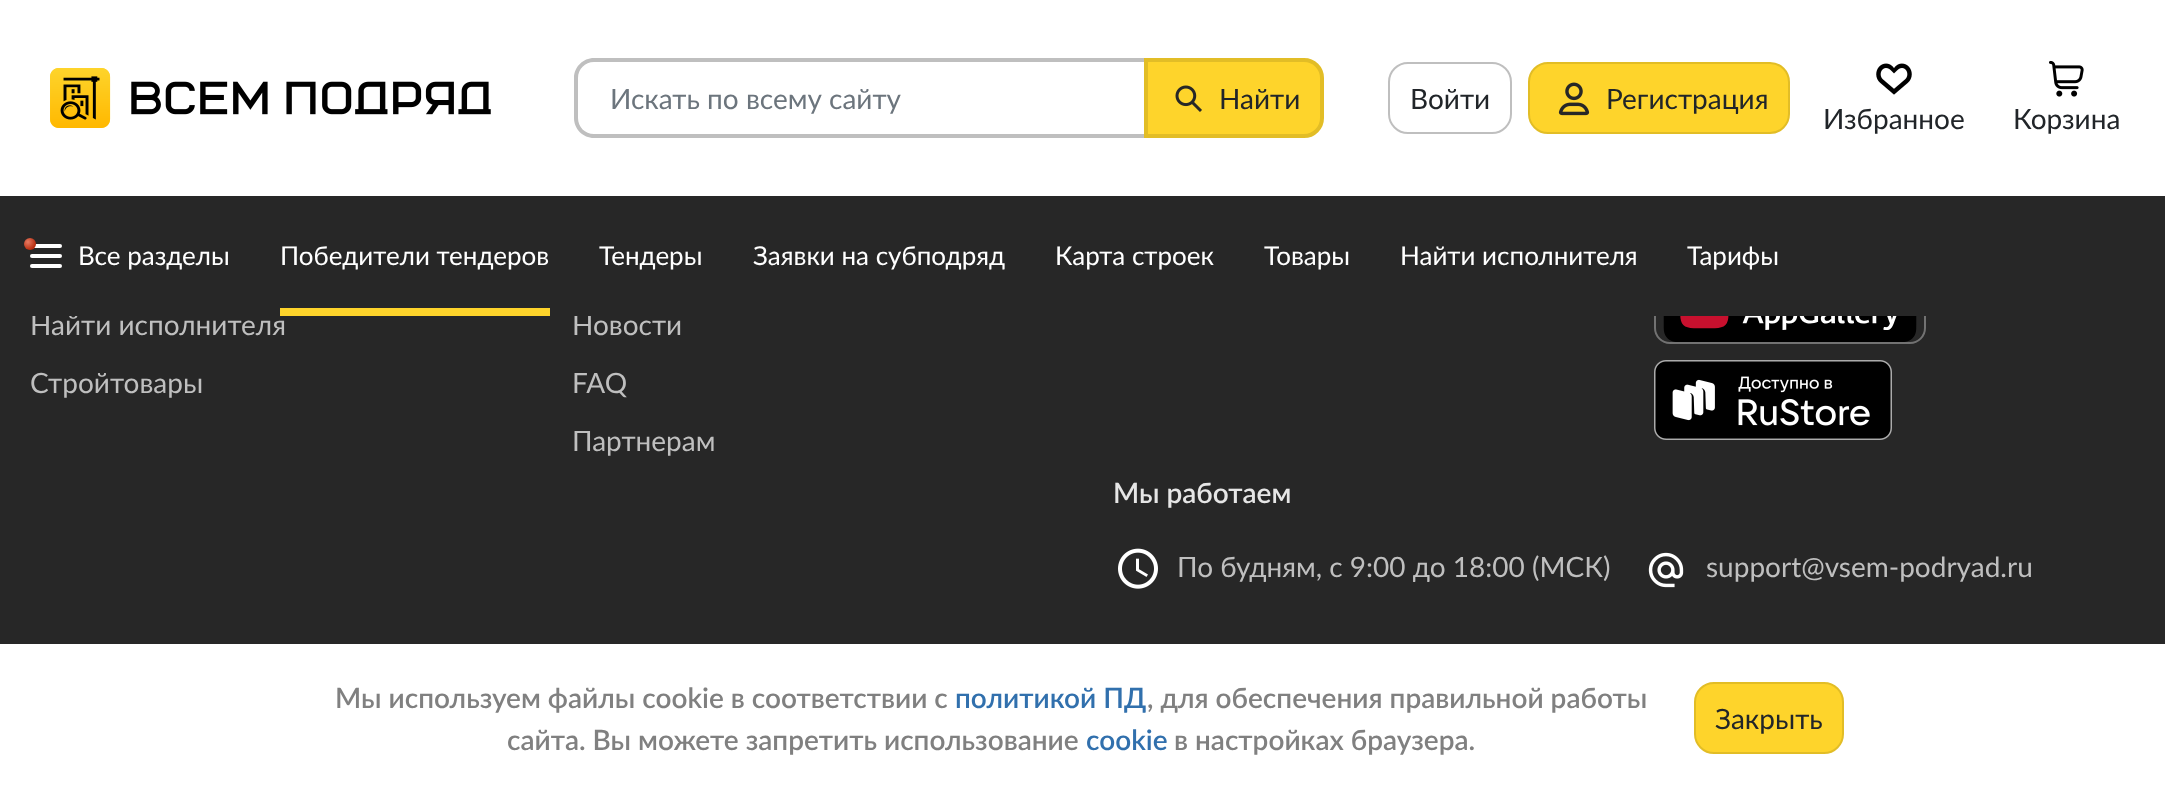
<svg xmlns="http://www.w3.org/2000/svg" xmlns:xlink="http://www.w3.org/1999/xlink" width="2165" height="792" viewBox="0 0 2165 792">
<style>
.cls-1{font:28px Lato;fill:#6c757d}
.cls-2{font:28px Lato;fill:#212529}
.cls-3{font:28px Lato;fill:#bfbfbf}
.cls-4{font:26px Lato;fill:#ffffff}
.cls-5{font:600 28px Lato;fill:#e6e6e6}
.cls-6{font:600 28px Lato;fill:#808080}
.cls-7{font:600 28px Lato;fill:#3170ad}
</style>
<defs>
<radialGradient id="g1" gradientUnits="userSpaceOnUse" cx="28" cy="242" r="8"><stop offset="0" stop-color="#e77a62"/><stop offset="1" stop-color="#b52b0d"/></radialGradient>
</defs>
<rect width="100%" height="100%" fill="#272727"/>
<rect fill="#ffffff" x="0" y="0" width="2165" height="196"/>
<image xlink:href="image0.png" x="50" y="68" width="441" height="60"/>
<path fill="#bfbfbf" fill-rule="evenodd" d="M594 58H1144V138H594C583 138 574 129 574 118V78C574 67 583 58 594 58ZM594 62H1144V134H594C585 134 578 127 578 118V78C578 69 585 62 594 62Z"/>
<path fill="#fed42b" stroke="#e2bd26" stroke-width="4" d="M1146 60H1304C1314 60 1322 68 1322 78V118C1322 128 1314 136 1304 136H1146Z"/>
<image xlink:href="image1.png" x="1175" y="85" width="27" height="27"/>
<rect fill="none" stroke="#bfbfbf" stroke-width="2" x="1389" y="63" width="122" height="70" rx="19"/>
<rect fill="#fed42b" stroke="#e2bd26" stroke-width="2" x="1529" y="63" width="260" height="70" rx="19"/>
<image xlink:href="image2.png" x="1558" y="82" width="32" height="34"/>
<image xlink:href="image3.png" x="1876" y="63" width="36" height="32"/>
<image xlink:href="image4.png" x="2049" y="60" width="35" height="37"/>
<rect fill="#ffffff" x="30" y="244" width="32" height="4" rx="2"/>
<circle fill="url(#g1)" cx="30" cy="244" r="6"/>
<rect fill="#ffffff" x="30" y="254" width="32" height="4" rx="2"/>
<rect fill="none" stroke="#727272" stroke-width="2" x="1655" y="265" width="270" height="78" rx="15"/>
<image xlink:href="image5.png" x="1663" y="316" width="254" height="26"/>
<image xlink:href="image6.png" x="1654" y="360" width="238" height="80"/>
<image xlink:href="image7.png" x="1118" y="548" width="40" height="41"/>
<image xlink:href="image8.png" x="1648" y="552" width="36" height="36"/>
<rect fill="#ffffff" x="0" y="644" width="2165" height="148"/>
<rect fill="#fed42b" stroke="#e2bd26" stroke-width="2" x="1695" y="683" width="148" height="70" rx="19"/>
<text class="cls-1" x="610" y="109">Искать по всему сайту</text>
<text class="cls-2" x="1219" y="109">Найти</text>
<text class="cls-2" x="1410" y="109">Войти</text>
<text class="cls-2" x="1606" y="109">Регистрация</text>
<text class="cls-2" x="1823" y="129">Избранное</text>
<text class="cls-2" x="2013" y="129">Корзина</text>
<text class="cls-3" x="30" y="335">Найти исполнителя</text>
<text class="cls-3" x="30" y="393">Стройтовары</text>
<text class="cls-3" x="572" y="335">Новости</text>
<rect fill="#272727" x="32" y="264" width="1894" height="52"/>
<text class="cls-4" x="1687" y="265">Тарифы</text>
<text class="cls-4" x="1400" y="265">Найти исполнителя</text>
<text class="cls-4" x="1264" y="265">Товары</text>
<text class="cls-4" x="1055" y="265">Карта строек</text>
<text class="cls-4" x="753" y="265">Заявки на субподряд</text>
<text class="cls-4" x="599" y="265">Тендеры</text>
<rect fill="#fed42b" x="280" y="308" width="270" height="8"/>
<text class="cls-4" x="280" y="265">Победители тендеров</text>
<rect fill="#ffffff" x="30" y="264" width="32" height="4" rx="2"/>
<text class="cls-4" x="78" y="265">Все разделы</text>
<text class="cls-3" x="572" y="393">FAQ</text>
<text class="cls-3" x="572" y="451">Партнерам</text>
<text class="cls-5" x="1113" y="503">Мы работаем</text>
<text class="cls-3" x="1177" y="577">По будням, с 9:00 до 18:00 (МСК)</text>
<text class="cls-3" x="1706" y="577">support@vsem-podryad.ru</text>
<text class="cls-6" x="335" y="708">Мы используем файлы cookie в соответствии с</text>
<text class="cls-7" x="955" y="708">политикой ПД</text>
<text class="cls-6" x="1147" y="708">, для обеспечения правильной работы</text>
<text class="cls-6" x="507" y="750">сайта. Вы можете запретить использование</text>
<text class="cls-7" x="1086" y="750">cookie</text>
<text class="cls-6" x="1174" y="750">в настройках браузера.</text>
<text class="cls-2" x="1715" y="729">Закрыть</text>
</svg>
